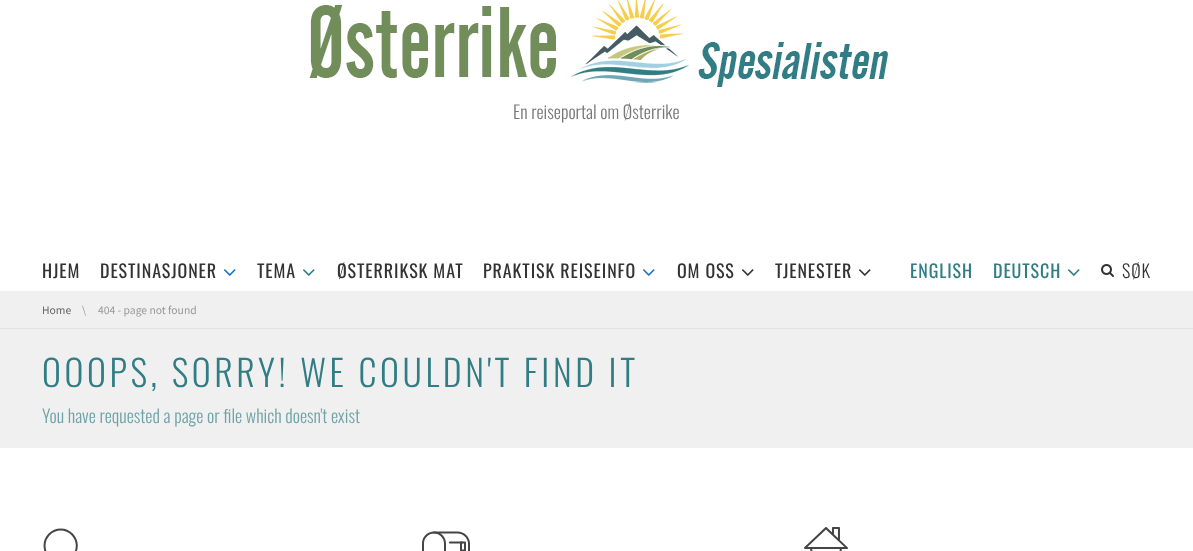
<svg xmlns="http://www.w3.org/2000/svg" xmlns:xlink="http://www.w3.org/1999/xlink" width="1193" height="551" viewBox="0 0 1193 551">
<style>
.cls-1{font:300 18px Oswald;fill:#777777}
.cls-2{font:18px Oswald;letter-spacing:0.9px;fill:#333333}
.cls-3{font:18px Oswald;letter-spacing:0.9px;fill:#307d84}
.cls-4{font:300 18px Oswald;letter-spacing:0.9px;fill:#333333}
.cls-5{font:11.6px Source Sans Pro;fill:#666666}
.cls-6{font:11.6px Source Sans Pro;fill:#999999}
.cls-7{font:300 36px Oswald;letter-spacing:3.6px;fill:#307d84}
.cls-8{font:300 18px Oswald;fill:#70a3a8}
</style>
<rect width="100%" height="100%" fill="#ffffff"/>
<image xlink:href="image0.png" x="309" y="0" width="579" height="87"/>
<image xlink:href="image1.png" x="224" y="269" width="12" height="7"/>
<image xlink:href="image2.png" x="303" y="269" width="12" height="7"/>
<image xlink:href="image1.png" x="643" y="269" width="12" height="7"/>
<image xlink:href="image3.png" x="742" y="269" width="12" height="7"/>
<image xlink:href="image3.png" x="859" y="269" width="12" height="7"/>
<image xlink:href="image2.png" x="1068" y="269" width="12" height="7"/>
<image xlink:href="image4.png" x="1101" y="264" width="13" height="13"/>
<rect fill="#f0f0f0" x="0" y="291" width="1193" height="37"/>
<rect fill="#e2e2e2" x="0" y="328" width="1193" height="1"/>
<image xlink:href="image5.png" x="43" y="528" width="35" height="23"/>
<image xlink:href="image6.png" x="422" y="531" width="48" height="20"/>
<image xlink:href="image7.png" x="804" y="527" width="44" height="24"/>
<rect fill="#f0f0f0" x="0" y="329" width="1193" height="119"/>
<text class="cls-1" x="513" y="119">En reiseportal om Østerrike</text>
<text class="cls-2" x="42" y="278">HJEM</text>
<text class="cls-2" x="100" y="278">DESTINASJONER</text>
<text class="cls-2" x="257" y="278">TEMA</text>
<text class="cls-2" x="337" y="278">ØSTERRIKSK MAT</text>
<text class="cls-2" x="483" y="278">PRAKTISK REISEINFO</text>
<text class="cls-2" x="677" y="278">OM OSS</text>
<text class="cls-2" x="775" y="278">TJENESTER</text>
<text class="cls-3" x="910" y="278">ENGLISH</text>
<text class="cls-3" x="993" y="278">DEUTSCH</text>
<text class="cls-4" x="1122" y="278">SØK</text>
<text class="cls-5" x="42" y="314">Home</text>
<text class="cls-6" x="82" y="314">\</text>
<text class="cls-6" x="98" y="314">404 - page not found</text>
<text class="cls-7" x="42" y="387">OOOPS, SORRY! WE COULDN'T FIND IT</text>
<text class="cls-8" x="42" y="423">You have requested a page or file which doesn't exist</text>
</svg>
